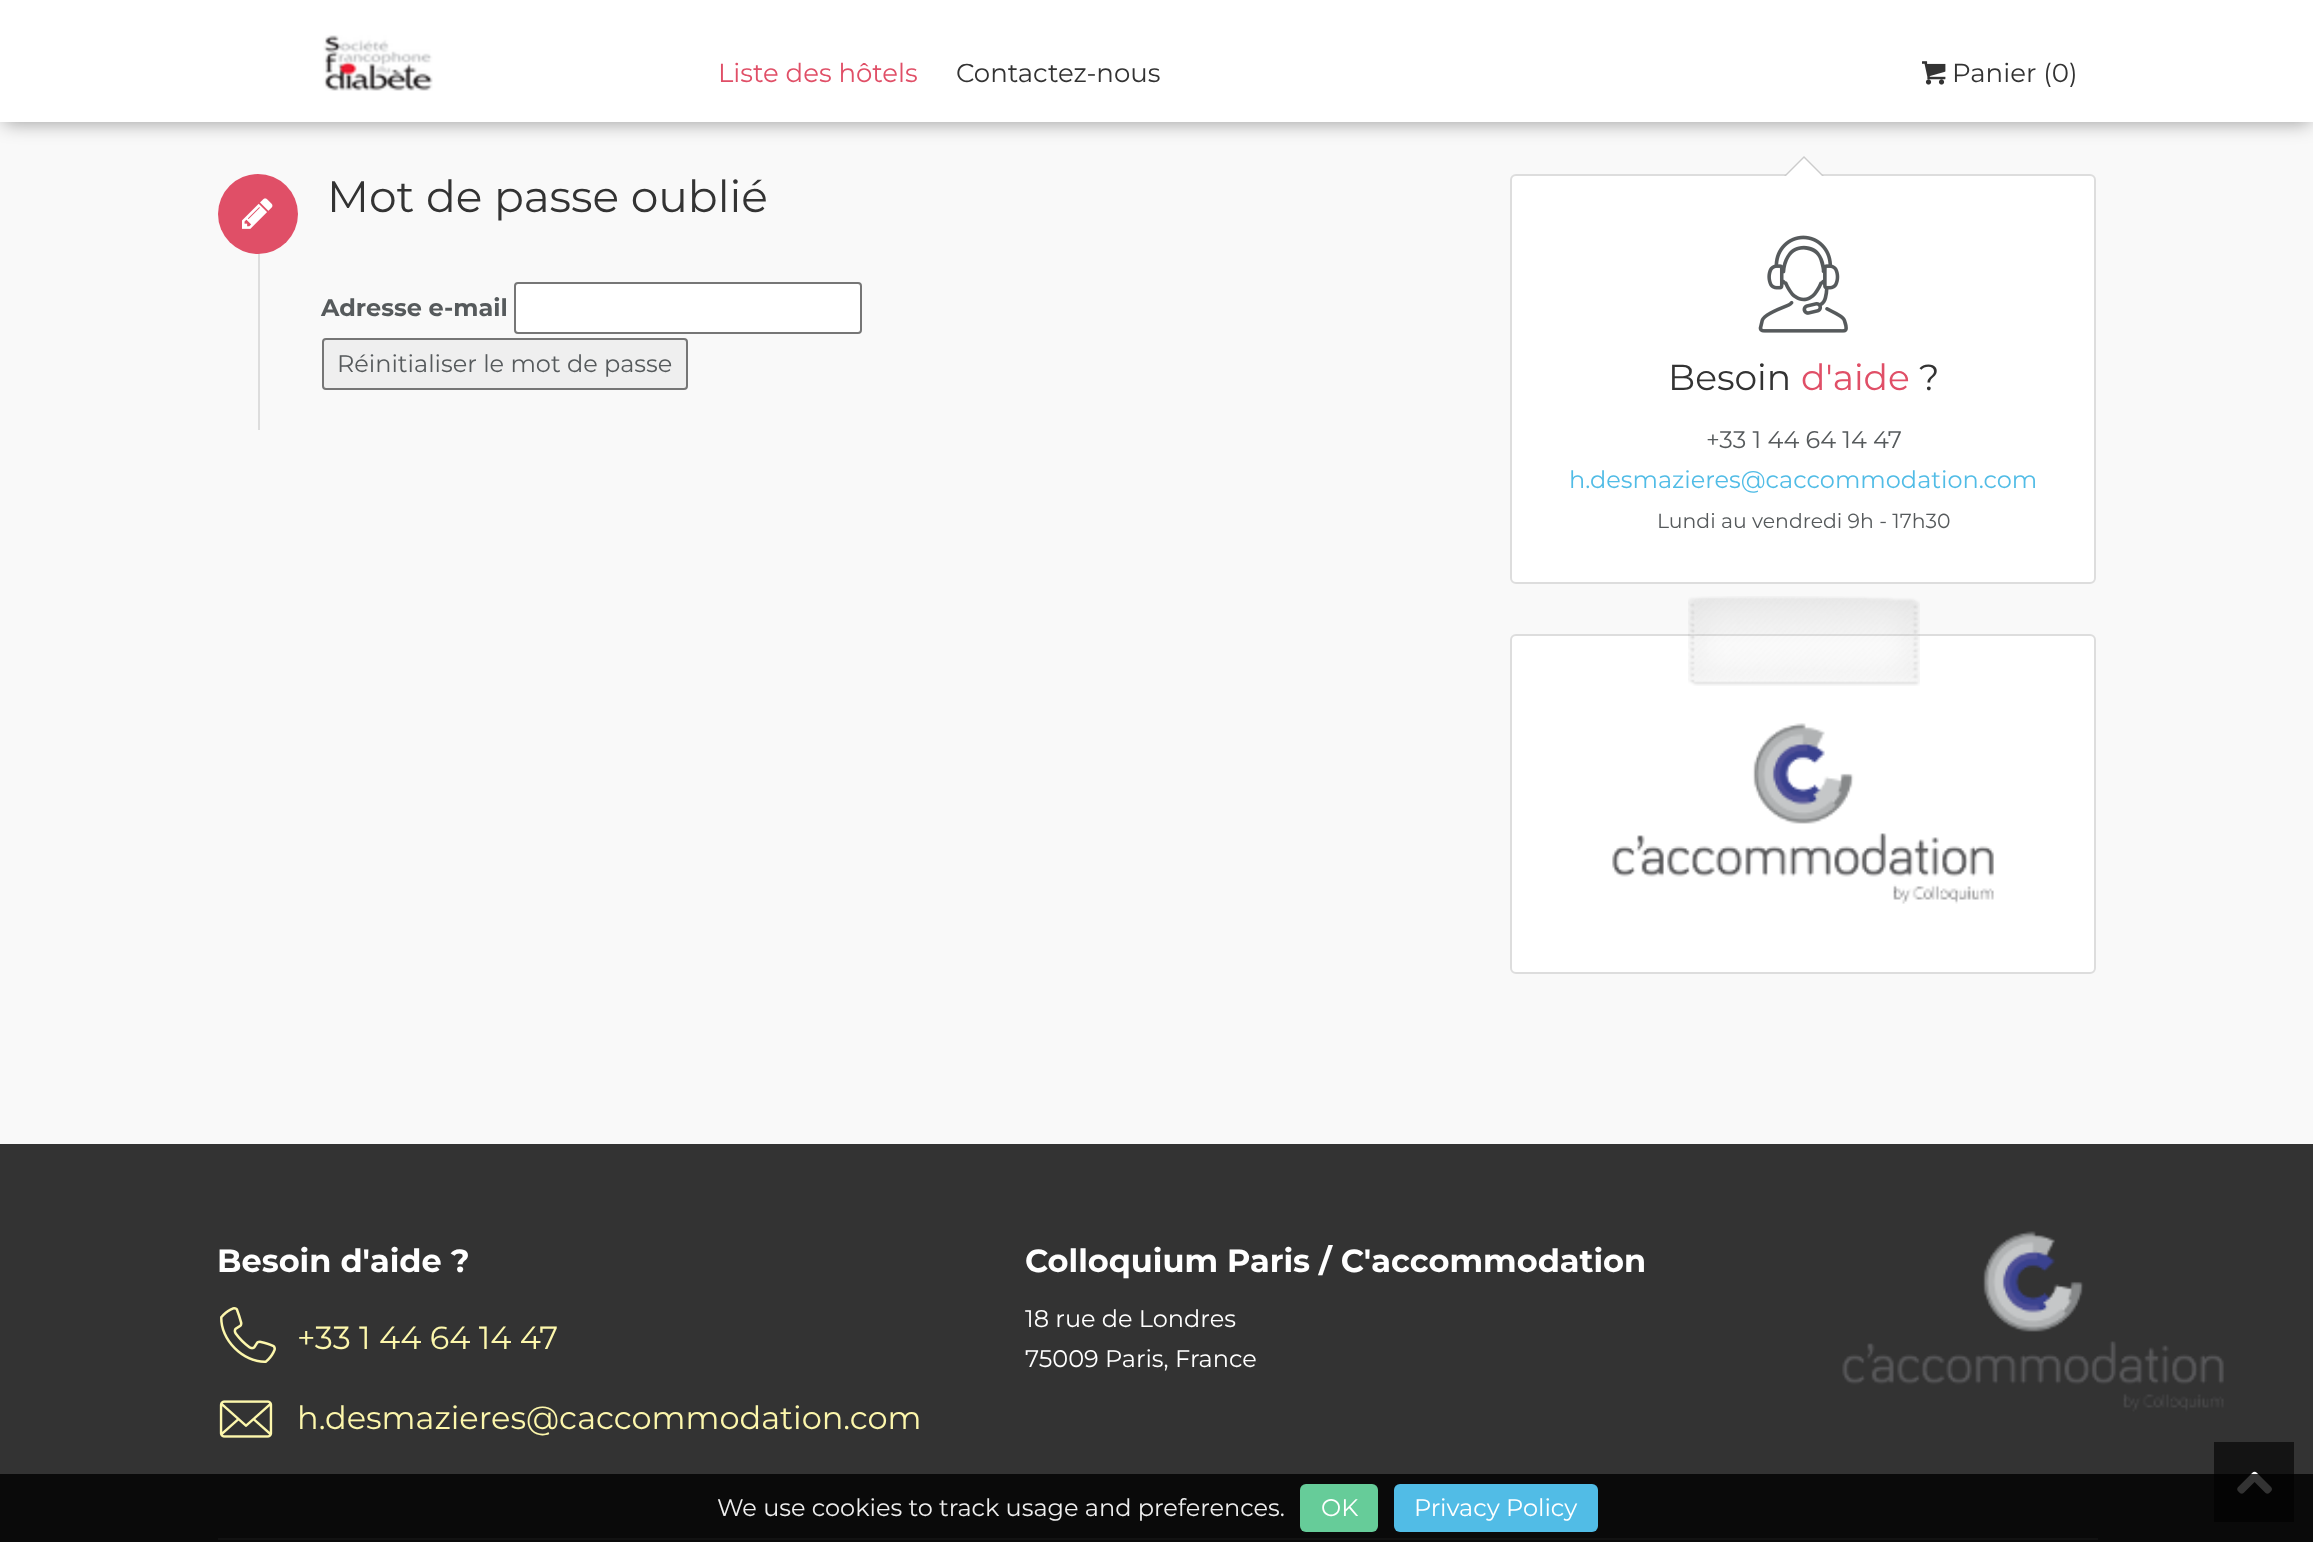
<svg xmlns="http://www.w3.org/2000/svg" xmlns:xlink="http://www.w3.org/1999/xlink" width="2313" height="1542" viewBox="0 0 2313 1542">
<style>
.cls-1{font:26px Montserrat;fill:#e04f67}
.cls-2{font:26px Montserrat;fill:#333333}
.cls-3{font:44px Montserrat;fill:#333333}
.cls-4{font:bold 24px Montserrat;fill:#565a5c}
.cls-5{font:24px Montserrat;fill:#565a5c}
.cls-6{font:36px Montserrat;fill:#333333}
.cls-7{font:36px Montserrat;fill:#e04f67}
.cls-8{font:24px Montserrat;fill:#51bce6}
.cls-9{font:20.4px Montserrat;fill:#565a5c}
.cls-10{font:bold 32px Montserrat;fill:#ffffff}
.cls-11{font:32px Montserrat;fill:#fdf7ac}
.cls-12{font:24px Montserrat;fill:#ffffff}
.cls-13{font:24px Montserrat;fill:#eeeeee}
</style>
<rect width="100%" height="100%" fill="#f9f9f9"/>
<rect fill="#000000" fill-opacity="0.41" filter="blur(10px)" x="4" y="8" width="2306" height="114"/>
<rect fill="#ffffff" x="0" y="0" width="2313" height="122"/>
<image xlink:href="image0.png" x="323" y="35" width="110" height="56"/>
<image xlink:href="image1.png" x="1922" y="61" width="24" height="24"/>
<rect fill="#dddddd" x="258" y="253" width="2" height="177"/>
<circle fill="#e04f67" cx="258" cy="214" r="40"/>
<image xlink:href="image2.png" x="242" y="198" width="31" height="31"/>
<rect fill="#ffffff" stroke="#767676" stroke-width="2" x="515" y="283" width="346" height="50" rx="3"/>
<rect fill="#efefef" stroke="#767676" stroke-width="2" x="323" y="339" width="364" height="50" rx="3"/>
<rect fill="#ffffff" stroke="#dddddd" stroke-width="2" x="1511" y="175" width="584" height="408" rx="5"/>
<path fill="#cccccc" d="M1824 176H1784L1804 156Z"/>
<path fill="#ffffff" d="M1824 178H1784L1804 158Z"/>
<image xlink:href="image3.png" x="1758" y="235" width="90" height="98"/>
<rect fill="#ffffff" stroke="#dddddd" stroke-width="2" x="1511" y="635" width="584" height="338" rx="5"/>
<image xlink:href="image4.png" x="1688" y="596" width="232" height="90"/>
<image xlink:href="image5.png" x="1612" y="723" width="382" height="181"/>
<rect fill="#333333" x="0" y="1144" width="2313" height="398"/>
<image xlink:href="image6.png" x="220" y="1307" width="56" height="56"/>
<image xlink:href="image7.png" x="219" y="1400" width="54" height="38"/>
<image xlink:href="image8.png" x="1842" y="1231" width="382" height="181"/>
<rect fill="#5c5c5c" x="218" y="1538" width="1880" height="2"/>
<rect fill="#141414" x="2214" y="1442" width="80" height="80"/>
<image xlink:href="image9.png" x="2237" y="1471" width="35" height="23"/>
<rect fill="#000000" fill-opacity="0.8" x="0" y="1474" width="2313" height="68"/>
<rect fill="#66cc99" x="1300" y="1484" width="78" height="48" rx="6"/>
<rect fill="#51bce6" x="1394" y="1484" width="204" height="48" rx="6"/>
<text class="cls-1" x="718" y="82">Liste des hôtels</text>
<text class="cls-2" x="956" y="82">Contactez-nous</text>
<text class="cls-2" x="1952" y="82">Panier (0)</text>
<text class="cls-3" x="327" y="212">Mot de passe oublié</text>
<text class="cls-4" x="321" y="316">Adresse e-mail</text>
<text class="cls-5" x="337" y="372">Réinitialiser le mot de passe</text>
<text class="cls-6" x="1668" y="390">Besoin</text>
<text class="cls-7" x="1801" y="390">d'aide</text>
<text class="cls-6" x="1919" y="390">?</text>
<text class="cls-5" x="1706" y="448">+33 1 44 64 14 47</text>
<text class="cls-8" x="1569" y="488">h.desmazieres@caccommodation.com</text>
<text class="cls-9" x="1657" y="528">Lundi au vendredi 9h - 17h30</text>
<text class="cls-10" x="217" y="1272">Besoin d'aide ?</text>
<text class="cls-11" x="297" y="1349">+33 1 44 64 14 47</text>
<text class="cls-11" x="297" y="1429">h.desmazieres@caccommodation.com</text>
<text class="cls-10" x="1025" y="1272">Colloquium Paris / C'accommodation</text>
<text class="cls-12"><tspan x="1025" y="1327">18 rue de Londres</tspan><tspan x="1025" y="1367">75009 Paris, France</tspan></text>
<text class="cls-13" x="717" y="1516">We use cookies to track usage and preferences.</text>
<text class="cls-12" x="1321" y="1516">OK</text>
<text class="cls-12" x="1414" y="1516">Privacy Policy</text>
</svg>
